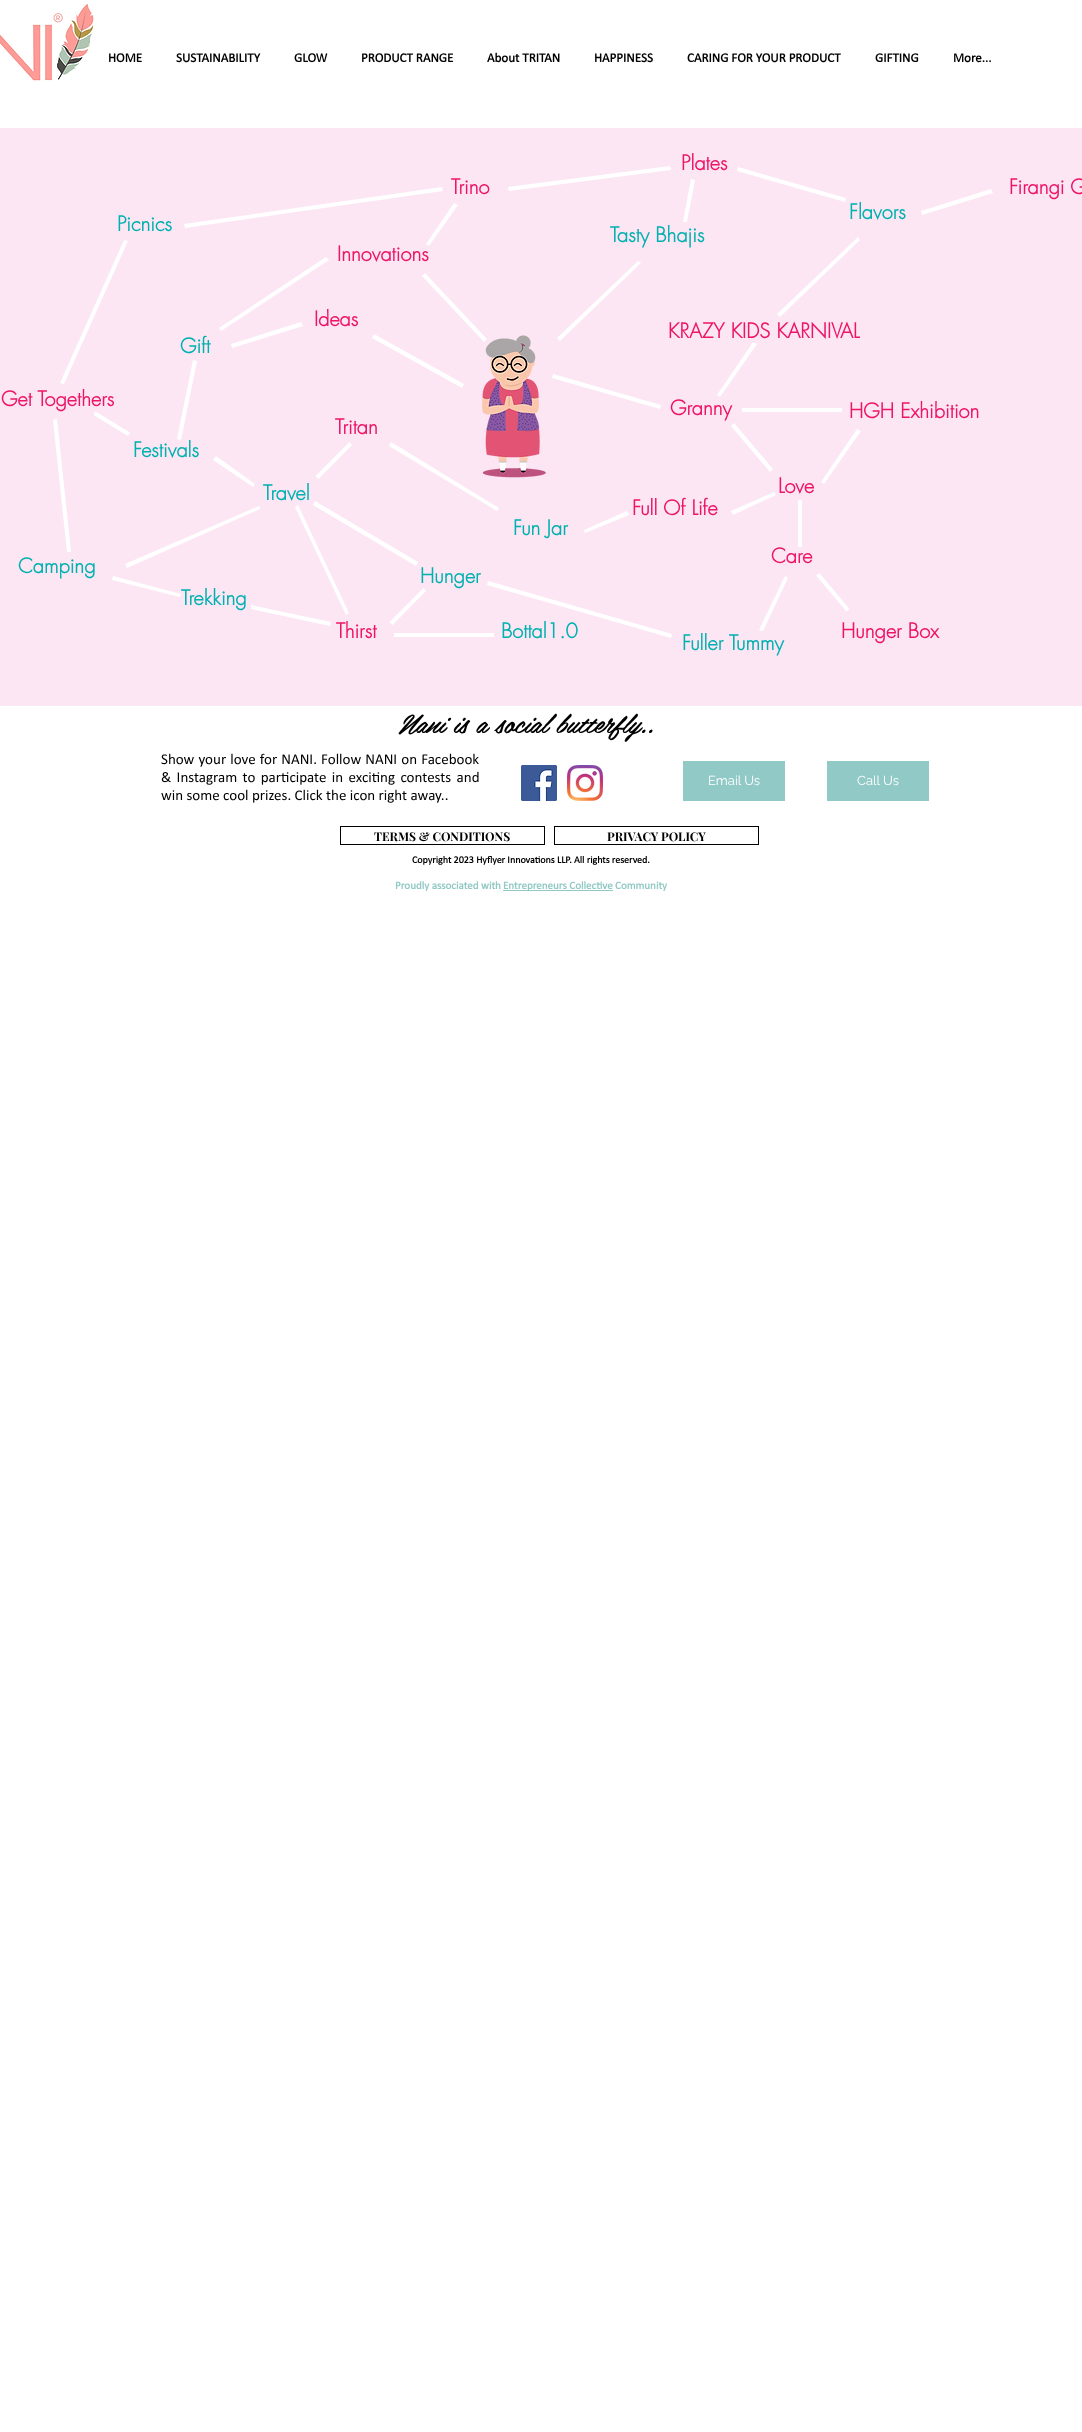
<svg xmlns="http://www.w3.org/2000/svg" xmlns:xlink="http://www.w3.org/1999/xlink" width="1082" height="2432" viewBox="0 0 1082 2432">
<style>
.cls-1{font:bold 13px Calibri;fill:#000000}
.cls-2{font:bold 20px futura;fill:#ed1566}
.cls-3{font:bold 20px futura;fill:#01b1af}
.cls-4{font:italic 26px 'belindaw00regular';fill:#000000}
.cls-5{font:15px Calibri;fill:#000000}
.cls-6{font:13px Raleway;fill:#ffffff}
.cls-7{font:bold 12px Playfair Display;fill:#000000}
.cls-8{font:bold 10px Calibri;fill:#000000}
.cls-9{font:bold 11px Calibri;fill:#91c9c6}
</style>
<rect width="100%" height="100%" fill="#ffffff"/>
<image xlink:href="image0.png" x="0" y="4" width="94" height="77"/>
<rect fill="#fce6f4" x="0" y="128" width="1082" height="578"/>
<path fill="#ffffff" d="M670 166L671 170L509 191L508 187Z"/>
<path fill="#ffffff" d="M687 222H683L691 179L695 180Z"/>
<path fill="#ffffff" d="M737 171L738 167L846 198L845 202Z"/>
<path fill="#ffffff" d="M922 215L921 211L991 189L993 193Z"/>
<path fill="#ffffff" d="M64 384L60 383L124 240L128 241Z"/>
<path fill="#ffffff" d="M780 317L777 314L858 237L860 240Z"/>
<path fill="#ffffff" d="M372 338L374 334L464 384L462 388Z"/>
<image xlink:href="image1.png" x="482" y="335" width="64" height="143"/>
<path fill="#ffffff" d="M422 276L425 273L487 339L484 342Z"/>
<path fill="#ffffff" d="M560 341L557 338L638 261L641 263Z"/>
<path fill="#ffffff" d="M232 348L231 344L301 322L303 326Z"/>
<path fill="#ffffff" d="M720 397L717 395L753 342L757 344Z"/>
<path fill="#ffffff" d="M181 440L177 439L193 360L197 361Z"/>
<path fill="#ffffff" d="M552 378L553 374L661 405L660 409Z"/>
<rect fill="#ffffff" x="742" y="408" width="100" height="4"/>
<path fill="#ffffff" d="M71 552H67L53 420L57 419Z"/>
<path fill="#ffffff" d="M213 460L216 456L255 484L253 487Z"/>
<path fill="#ffffff" d="M318.5 479L315.5 476L349.5 442L352 445Z"/>
<path fill="#ffffff" d="M389 446L391 442L499 508L497 511Z"/>
<path fill="#ffffff" d="M773 469L770 472L731 426L734 423Z"/>
<path fill="#ffffff" d="M824 484L821 482L857 429L861 431Z"/>
<path fill="#ffffff" d="M295 507L298 505L349 613L346 615Z"/>
<path fill="#ffffff" d="M313 505L315 501L418 562L416 566Z"/>
<path fill="#ffffff" d="M733 515L731 511L774 492L776 495Z"/>
<rect fill="#ffffff" x="798" y="500" width="4" height="47"/>
<path fill="#ffffff" d="M127 568L125 564L259 506L260 509Z"/>
<path fill="#ffffff" d="M627 511L629 515L585 533L584 530Z"/>
<path fill="#ffffff" d="M112 580L113 576L181 594L180 597Z"/>
<path fill="#ffffff" d="M849.5 609L846.5 611.5L816 575.5L819.5 573Z"/>
<path fill="#ffffff" d="M331 622L330 626L251 609V605Z"/>
<path fill="#ffffff" d="M763 631L759 630L785 576L788 578Z"/>
<rect fill="#ffffff" x="394" y="633" width="100" height="4"/>
<image xlink:href="image2.png" x="521" y="765" width="36" height="36"/>
<image xlink:href="image3.png" x="567" y="765" width="36" height="36"/>
<rect fill="#91c9c6" x="683" y="761" width="102" height="40"/>
<rect fill="#91c9c6" x="827" y="761" width="102" height="40"/>
<rect fill="none" stroke="#000000" x="340.5" y="826.5" width="204" height="18"/>
<rect fill="none" stroke="#000000" x="554.5" y="826.5" width="204" height="18"/>
<rect fill="#91c9c6" x="503" y="890" width="110" height="1"/>
<text class="cls-1" x="108" y="62">HOME</text>
<text class="cls-1" x="176" y="62">SUSTAINABILITY</text>
<text class="cls-1" x="294" y="62">GLOW</text>
<text class="cls-1" x="361" y="62">PRODUCT RANGE</text>
<text class="cls-1" x="487" y="62">About TRITAN</text>
<text class="cls-1" x="594" y="62">HAPPINESS</text>
<text class="cls-1" x="687" y="62">CARING FOR YOUR PRODUCT</text>
<text class="cls-1" x="875" y="62">GIFTING</text>
<text class="cls-1" x="953" y="62">More...</text>
<text class="cls-2" x="681" y="170">Plates</text>
<text class="cls-2" x="451" y="194">Trino</text>
<text class="cls-3" x="849" y="219">Flavors</text>
<text class="cls-2" x="1009" y="194">Firangi G</text>
<text class="cls-3" x="117" y="231">Picnics</text>
<text class="cls-2" x="337" y="261">Innovations</text>
<path fill="#ffffff" d="M429 246L426 244L454 203L458 205Z"/>
<path fill="#ffffff" d="M185 228L184 224L442 187L443 191Z"/>
<text class="cls-3" x="610" y="242">Tasty Bhajis</text>
<text class="cls-2" x="314" y="326">Ideas</text>
<path fill="#ffffff" d="M221 331L219 328L326 257L329 260Z"/>
<text class="cls-2" x="668" y="338">KRAZY KIDS KARNIVAL</text>
<text class="cls-3" x="180" y="353">Gift</text>
<text class="cls-2" x="1" y="406">Get Togethers</text>
<text class="cls-2" x="670" y="415">Granny</text>
<text class="cls-2" x="849" y="418">HGH Exhibition</text>
<path fill="#ffffff" d="M130 432.5L128 436L93.5 415L95.5 411.5Z"/>
<text class="cls-3" x="133" y="457">Festivals</text>
<text class="cls-3" x="263" y="500">Travel</text>
<text class="cls-2" x="335" y="434">Tritan</text>
<text class="cls-2" x="778" y="493">Love</text>
<text class="cls-2" x="632" y="515">Full Of Life</text>
<text class="cls-3" x="513" y="535">Fun Jar</text>
<text class="cls-3" x="18" y="573">Camping</text>
<text class="cls-3" x="420" y="583">Hunger</text>
<text class="cls-2" x="771" y="563">Care</text>
<text class="cls-3" x="181" y="605">Trekking</text>
<path fill="#ffffff" d="M392.5 625L389.5 622L423.5 588L426 591Z"/>
<text class="cls-2" x="336" y="638">Thirst</text>
<text class="cls-3" x="501" y="638">Bottal1.0</text>
<path fill="#ffffff" d="M672 634L671 638L487 585L488 581Z"/>
<text class="cls-3" x="682" y="650">Fuller Tummy</text>
<text class="cls-2" x="841" y="638">Hunger Box</text>
<text class="cls-4" x="398" y="733">Nani is a social butterfly..</text>
<text class="cls-5"><tspan x="161" y="764" word-spacing="0.75">Show your love for NANI. Follow NANI on Facebook</tspan><tspan x="161" y="782" word-spacing="2">&amp; Instagram to participate in exciting contests and</tspan><tspan x="161" y="800">win some cool prizes. Click the icon right away..</tspan></text>
<text class="cls-6" x="708" y="785">Email Us</text>
<text class="cls-6" x="857" y="785">Call Us</text>
<text class="cls-7" x="374" y="841">TERMS &amp; CONDITIONS</text>
<text class="cls-7" x="607" y="841">PRIVACY POLICY</text>
<text class="cls-8" x="412" y="863">Copyright 2023 Hyflyer Innovations LLP. All rights reserved.</text>
<text class="cls-9" x="395" y="889">Proudly associated with</text>
<text class="cls-9" x="503" y="889">Entrepreneurs Collective Community</text>
</svg>
